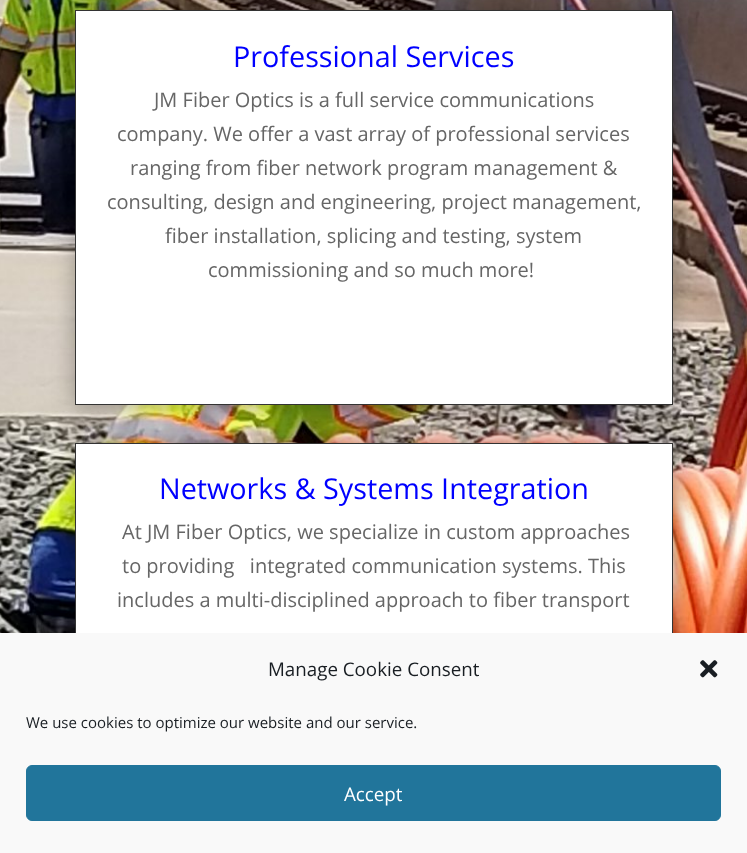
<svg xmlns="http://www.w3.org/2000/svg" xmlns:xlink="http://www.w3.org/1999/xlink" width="747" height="853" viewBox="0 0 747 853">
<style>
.cls-1{font:28.75px Open Sans;fill:#0000ff}
.cls-2{font:20px Open Sans;fill:#666666}
.cls-3{font:18.75px Open Sans;fill:#191e23}
.cls-4{font:15px Open Sans;fill:#191e23}
.cls-5{font:18.75px Open Sans;fill:#ffffff}
</style>
<rect width="100%" height="100%" fill="#ffffff"/>
<image xlink:href="image0.png" x="0" y="0" width="747" height="633"/>
<rect fill="#000000" fill-opacity="0.3" filter="blur(11px)" x="75" y="13" width="598" height="395"/>
<rect fill="#ffffff" stroke="#333333" x="75.5" y="10.5" width="597" height="394"/>
<rect fill="#000000" fill-opacity="0.3" filter="blur(11px)" x="75" y="445" width="598" height="395"/>
<rect fill="#ffffff" x="76" y="444" width="596" height="189"/>
<rect fill="none" stroke="#333333" x="75.5" y="443.5" width="597" height="394"/>
<rect fill="#f9f9f9" x="0" y="633" width="747" height="220"/>
<image xlink:href="image1.png" x="700" y="660" width="18" height="18"/>
<rect fill="#21759b" stroke="#21759b" x="26.5" y="765.5" width="694" height="55" rx="5.5"/>
<text class="cls-1" x="233" y="67">Professional Services</text>
<text class="cls-2" x="154" y="107">JM Fiber Optics is a full service communications</text>
<text class="cls-2" x="117" y="141">company. We offer a vast array of professional services</text>
<text class="cls-2" x="130" y="175">ranging from fiber network program management &amp;</text>
<text class="cls-2" x="107" y="209">consulting, design and engineering, project management,</text>
<text class="cls-2" x="165" y="243">fiber installation, splicing and testing, system</text>
<text class="cls-2" x="208" y="277">commissioning and so much more!</text>
<text class="cls-1" x="159" y="499">Networks &amp; Systems Integration</text>
<text class="cls-2" xml:space="preserve"><tspan x="122" y="539">At JM Fiber Optics, we specialize in custom approaches</tspan><tspan x="122" y="573">to providing   integrated communication systems. This</tspan></text>
<text class="cls-2" x="117" y="607">includes a multi-disciplined approach to fiber transport</text>
<text class="cls-3" x="268" y="676">Manage Cookie Consent</text>
<text class="cls-4" x="26" y="728">We use cookies to optimize our website and our service.</text>
<text class="cls-5" x="344" y="801">Accept</text>
</svg>
